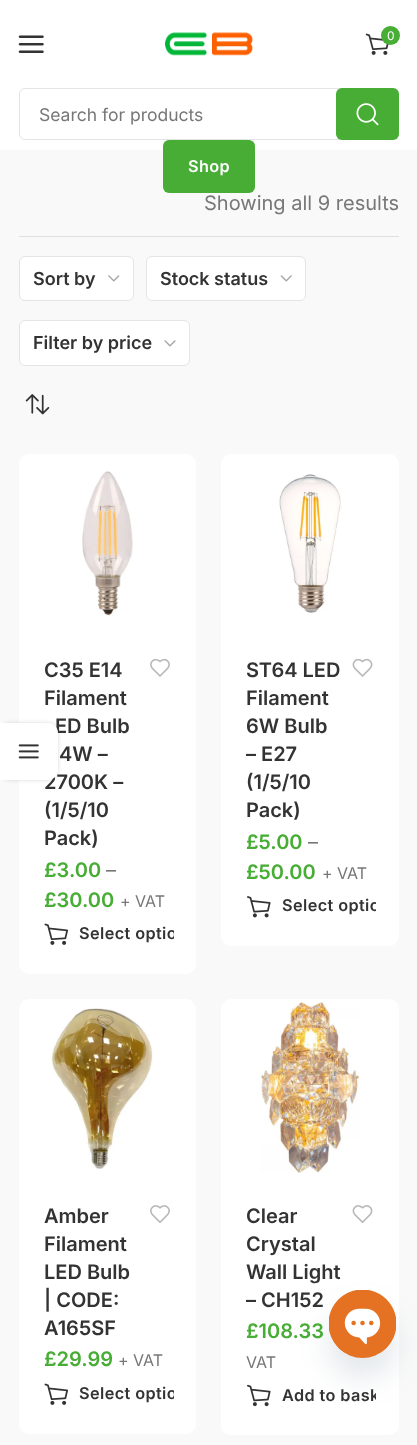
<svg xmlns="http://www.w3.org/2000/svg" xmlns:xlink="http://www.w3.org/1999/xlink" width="417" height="1445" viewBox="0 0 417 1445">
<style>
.cls-1{font:12px Inter;fill:#ffffff}
.cls-2{font:17.5px Inter;fill:#777777}
.cls-3{font:600 16.25px Inter;letter-spacing:0.4px;fill:#ffffff}
.cls-4{font:20px Inter;fill:#777777}
.cls-5{font:600 18px Inter;fill:#333333}
.cls-6{font:600 20px Inter;fill:#333333}
.cls-7{font:600 20px Inter;fill:#47ad35}
.cls-8{font:16px Inter;fill:#777777}
.cls-9{font:600 16.25px Inter;letter-spacing:0.4px;fill:#333333}
</style>
<defs>
<clipPath id="clip1"><rect x="44" y="918" width="130" height="31"/></clipPath>
<clipPath id="clip2"><rect x="246" y="889" width="130" height="32"/></clipPath>
<clipPath id="clip3"><rect x="44" y="1376" width="130" height="33"/></clipPath>
<clipPath id="clip4"><rect x="246" y="1379" width="130" height="31"/></clipPath>
</defs>
<rect width="100%" height="100%" fill="#f9f9f9"/>
<rect fill="#ffffff" x="0" y="0" width="417" height="150"/>
<image xlink:href="image0.png" x="18" y="35" width="26" height="18"/>
<image xlink:href="image1.png" x="165" y="32" width="88" height="24"/>
<image xlink:href="image2.png" x="365" y="33" width="24" height="22"/>
<circle fill="#47ad35" cx="390.5" cy="35.5" r="9.5"/>
<rect fill="none" stroke="#e4e4e4" x="19.5" y="88.5" width="379" height="51" rx="5.5"/>
<rect fill="#47ad35" x="336" y="88" width="63" height="52" rx="6"/>
<image xlink:href="image3.png" x="356" y="103" width="23" height="23"/>
<rect fill="#47ad35" x="163" y="140" width="92" height="53" rx="6"/>
<rect fill="#dfdfdf" x="19" y="236" width="380" height="1"/>
<rect fill="#ffffff" x="19" y="454" width="177" height="520" rx="10"/>
<rect fill="#000000" fill-opacity="0.15" filter="blur(2px)" x="0" y="723" width="58" height="57" rx="10"/>
<rect fill="#ffffff" stroke="#e4e4e4" x="19.5" y="256.5" width="114" height="44" rx="5.5"/>
<image xlink:href="image5.png" x="108" y="275" width="12" height="7"/>
<rect fill="#ffffff" stroke="#e4e4e4" x="146.5" y="256.5" width="159" height="44" rx="5.5"/>
<image xlink:href="image6.png" x="280" y="275" width="12" height="7"/>
<rect fill="#ffffff" stroke="#e4e4e4" x="19.5" y="320.5" width="170" height="45" rx="5.5"/>
<image xlink:href="image7.png" x="164" y="340" width="12" height="7"/>
<image xlink:href="image8.png" x="25" y="394" width="25" height="21"/>
<image xlink:href="image9.png" x="82" y="471" width="51" height="145"/>
<image xlink:href="image10.png" x="150" y="658" width="20" height="19"/>
<image xlink:href="image11.png" x="44" y="923" width="25" height="22"/>
<rect fill="#ffffff" x="221" y="454" width="178" height="492" rx="10"/>
<image xlink:href="image12.png" x="279" y="474" width="62" height="139"/>
<image xlink:href="image13.png" x="352" y="658" width="21" height="19"/>
<image xlink:href="image14.png" x="247" y="896" width="24" height="22"/>
<rect fill="#ffffff" x="19" y="999" width="177" height="435" rx="10"/>
<image xlink:href="image15.png" x="50" y="1008" width="104" height="162"/>
<image xlink:href="image16.png" x="150" y="1205" width="20" height="18"/>
<image xlink:href="image11.png" x="44" y="1383" width="25" height="22"/>
<rect fill="#ffffff" x="221" y="999" width="178" height="436" rx="10"/>
<image xlink:href="image17.png" x="259" y="1002" width="101" height="171"/>
<image xlink:href="image18.png" x="352" y="1205" width="21" height="18"/>
<image xlink:href="image19.png" x="247" y="1384" width="24" height="23"/>
<rect fill="#49687e" fill-opacity="0.16" filter="blur(15px)" x="329" y="1310" width="67" height="68" rx="33.5"/>
<rect fill="#e57223" x="329" y="1290" width="67" height="68" rx="33.5"/>
<image xlink:href="image20.png" x="329" y="1290" width="67" height="63"/>
<text class="cls-1" x="387" y="40">0</text>
<text class="cls-2" x="39" y="121">Search for products</text>
<text class="cls-3" x="188" y="172">Shop</text>
<text class="cls-4" x="204" y="210">Showing all 9 results</text>
<text class="cls-5" x="33" y="285">Sort by</text>
<text class="cls-5" x="160" y="285">Stock status</text>
<text class="cls-5" x="33" y="349">Filter by price</text>
<text class="cls-6"><tspan x="44" y="677">C35 E14</tspan><tspan x="44" y="705">Filament</tspan></text>
<text class="cls-6" x="55" y="733">ED Bulb</text>
<text class="cls-6" x="59" y="761">4W –</text>
<text class="cls-6" x="44" y="789">2700K –</text>
<path fill="#ffffff" d="M0 723H48C53.5 723 58 727.5 58 733V770C58 775.5 53.5 780 48 780H0Z"/>
<image xlink:href="image4.png" x="18" y="744" width="21" height="15"/>
<text class="cls-6"><tspan x="44" y="817">(1/5/10</tspan><tspan x="44" y="845">Pack)</tspan></text>
<text class="cls-7" x="44" y="877">£3.00</text>
<text class="cls-4" x="106" y="877">–</text>
<text class="cls-7" x="44" y="907">£30.00</text>
<text class="cls-8" x="120" y="907">+ VAT</text>
<g clip-path="url(#clip1)">
<text class="cls-9" x="79" y="939">Select optio</text>
</g>
<text class="cls-6"><tspan x="246" y="677">ST64 LED</tspan><tspan x="246" y="705">Filament</tspan><tspan x="246" y="733">6W Bulb</tspan><tspan x="246" y="761">– E27</tspan><tspan x="246" y="789">(1/5/10</tspan><tspan x="246" y="817">Pack)</tspan></text>
<text class="cls-7" x="246" y="849">£5.00</text>
<text class="cls-4" x="308" y="849">–</text>
<text class="cls-7" x="246" y="879">£50.00</text>
<text class="cls-8" x="322" y="879">+ VAT</text>
<g clip-path="url(#clip2)">
<text class="cls-9" x="282" y="911">Select optio</text>
</g>
<text class="cls-6"><tspan x="44" y="1223">Amber</tspan><tspan x="44" y="1251">Filament</tspan><tspan x="44" y="1279">LED Bulb</tspan><tspan x="44" y="1307">| CODE:</tspan><tspan x="44" y="1335">A165SF</tspan></text>
<text class="cls-7" x="44" y="1366">£29.99</text>
<text class="cls-8" x="118" y="1366">+ VAT</text>
<g clip-path="url(#clip3)">
<text class="cls-9" x="79" y="1399">Select optio</text>
</g>
<text class="cls-6"><tspan x="246" y="1223">Clear</tspan><tspan x="246" y="1251">Crystal</tspan><tspan x="246" y="1279">Wall Light</tspan><tspan x="246" y="1307">– CH152</tspan></text>
<text class="cls-7" x="246" y="1338">£108.33</text>
<text class="cls-8" x="246" y="1368">VAT</text>
<g clip-path="url(#clip4)">
<text class="cls-9" x="282" y="1401">Add to bask</text>
</g>
</svg>
